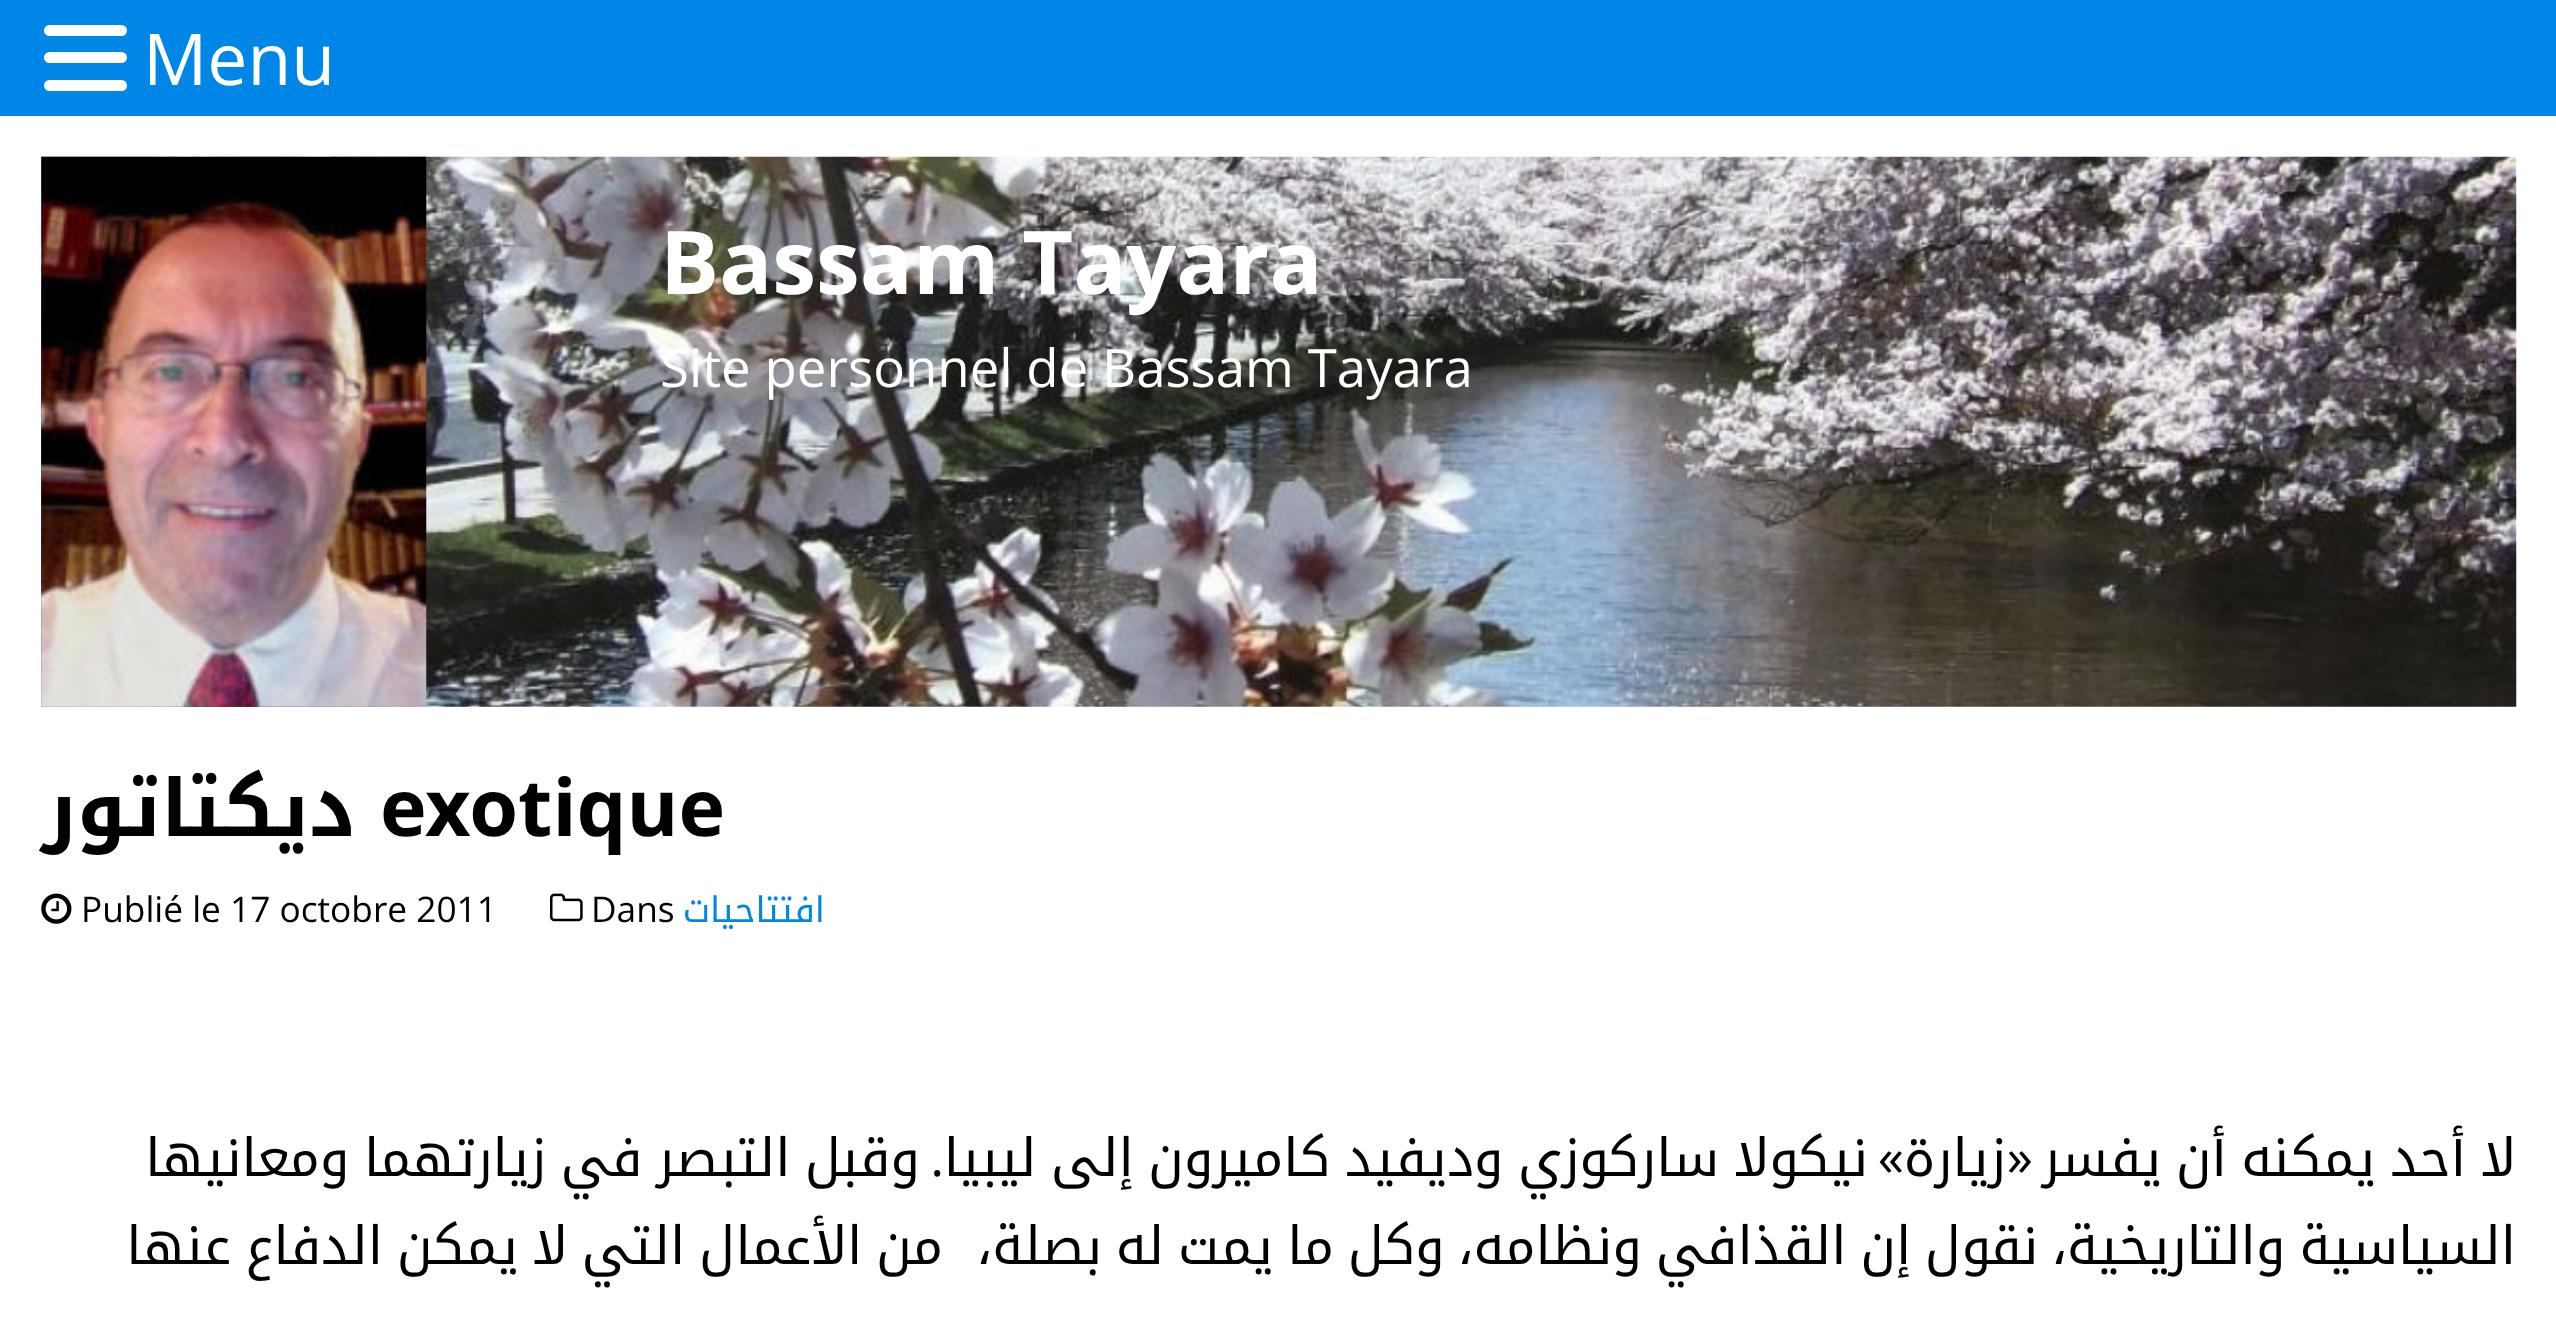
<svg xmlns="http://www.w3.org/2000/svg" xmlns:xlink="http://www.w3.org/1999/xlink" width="2556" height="1329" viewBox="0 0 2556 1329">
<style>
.cls-1{font:71.5px Open Sans;fill:#ffffff}
.cls-2{font:bold 88px Open Sans;fill:#ffffff}
.cls-3{font:52.8px Open Sans;fill:#ffffff}
.cls-4{font:bold 79px Noto Kufi Arabic;fill:#000000}
.cls-5{font:bold 79px Noto Kufi Arabic;direction:rtl;fill:#000000}
.cls-6{font:35.25px Noto Kufi Arabic;direction:rtl;fill:#0086e7}
.cls-7{font:35.25px Open Sans;fill:#000000}
.cls-8{font:52.8px Noto Kufi Arabic;direction:rtl;fill:#000000}
.cls-9{font:52.8px Open Sans;direction:rtl;fill:#000000}
</style>
<rect width="100%" height="100%" fill="#ffffff"/>
<rect fill="#0086e7" x="0" y="0" width="2556" height="116"/>
<rect fill="#ffffff" x="44" y="25" width="83" height="11" rx="5.5"/>
<rect fill="#ffffff" x="44" y="52" width="83" height="11" rx="5.5"/>
<rect fill="#ffffff" x="44" y="80" width="83" height="11" rx="5.5"/>
<image xlink:href="image0.png" x="41" y="156" width="2476" height="551"/>
<image xlink:href="image1.png" x="41" y="156" width="386" height="551"/>
<image xlink:href="image2.png" x="550" y="893" width="33" height="29"/>
<image xlink:href="image3.png" x="41" y="893" width="31" height="31"/>
<text class="cls-1" x="143" y="85">Menu</text>
<text class="cls-2" x="660" y="294">Bassam Tayara</text>
<text class="cls-3" x="660" y="387">Site personnel de Bassam Tayara</text>
<text class="cls-4" x="380" y="836">exotique</text>
<text class="cls-5" x="356" y="836">ديكتاتور</text>
<text class="cls-6" x="825" y="922">افتتاحيات</text>
<text class="cls-7" x="591" y="922">Dans</text>
<text class="cls-7" x="81" y="922">Publié le 17 octobre 2011</text>
<text class="cls-8" x="2516" y="1176" word-spacing="-3.5">لا أحد يمكنه أن يفسر</text>
<text class="cls-9" x="2033" y="1176">«</text>
<text class="cls-8" x="2006" y="1176">زيارة</text>
<text class="cls-8" x="1868" y="1176" word-spacing="-3.5">نيكولا ساركوزي وديفيد كاميرون إلى ليبيا</text>
<text class="cls-9" x="1904" y="1176">»</text>
<text class="cls-9" x="944" y="1176">.</text>
<text class="cls-8" x="920" y="1176" word-spacing="-3.5">وقبل التبصر في زيارتهما ومعانيها</text>
<text class="cls-8" x="2516" y="1264" word-spacing="-4">السياسية والتاريخية، نقول إن القذافي ونظامه، وكل ما يمت له بصلة،</text>
<text class="cls-8" x="943" y="1264" word-spacing="-4">من الأعمال التي لا يمكن الدفاع عنها</text>
</svg>
